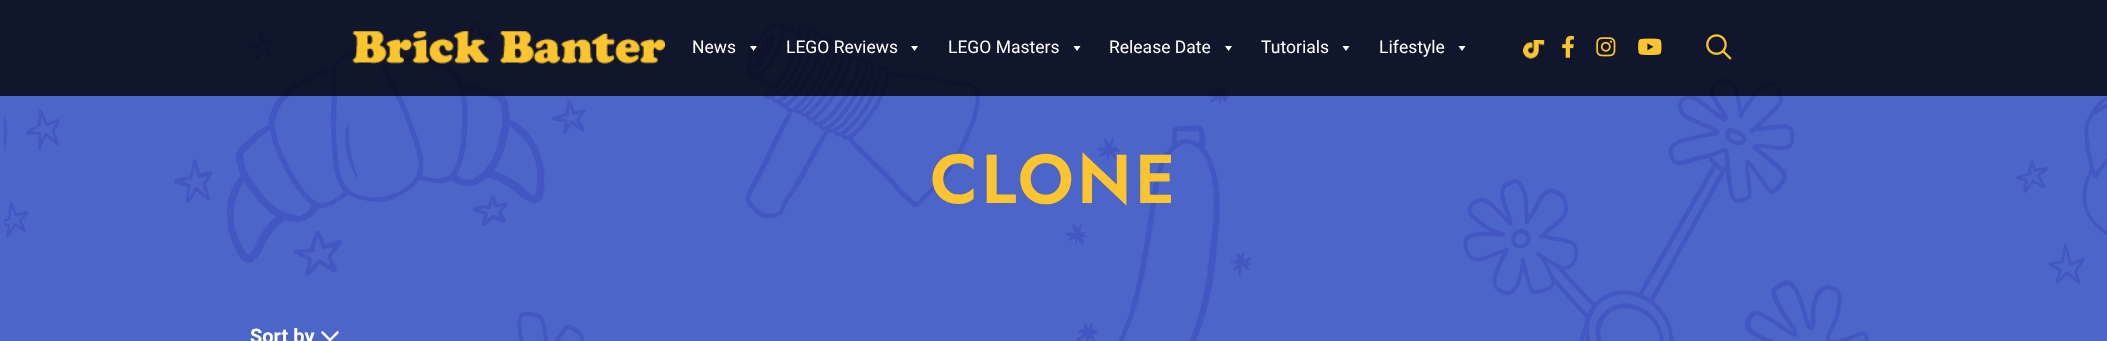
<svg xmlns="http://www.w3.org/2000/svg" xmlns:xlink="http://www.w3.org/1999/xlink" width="2107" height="341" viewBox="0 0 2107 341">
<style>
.cls-1{font:17.5px Heebo;fill:#ffffff}
.cls-2{font:600 69px Jost;letter-spacing:3.5px;fill:#fcc530}
.cls-3{font:bold 20px Heebo;fill:#ffffff}
</style>
<rect width="100%" height="100%" fill="#4c65c9"/>
<image xlink:href="image0.png" x="4" y="21" width="2103" height="320"/>
<rect fill="#000000" fill-opacity="0.78" x="0" y="0" width="2107" height="96"/>
<image xlink:href="image1.png" x="352" y="31" width="313" height="33"/>
<path fill="#ffffff" d="M757 46L753.5 51L750 46Z"/>
<path fill="#ffffff" d="M918 46L914.5 51L911 46Z"/>
<path fill="#ffffff" d="M1080.5 46L1077 51L1073.5 46Z"/>
<path fill="#ffffff" d="M1232 46L1228.5 51L1225 46Z"/>
<path fill="#ffffff" d="M1349.5 46L1346 51L1342.5 46Z"/>
<path fill="#ffffff" d="M1465.5 46L1462 51L1458.5 46Z"/>
<image xlink:href="image2.png" x="1523" y="40" width="22" height="19"/>
<image xlink:href="image3.png" x="1562" y="35" width="12" height="23"/>
<image xlink:href="image4.png" x="1596" y="37" width="20" height="20"/>
<image xlink:href="image5.png" x="1638" y="38" width="24" height="17"/>
<image xlink:href="image6.png" x="1706" y="34" width="26" height="26"/>
<image xlink:href="image7.png" x="321" y="331" width="18" height="10"/>
<text class="cls-1" x="692" y="53">News</text>
<text class="cls-1" x="786" y="53">LEGO Reviews</text>
<text class="cls-1" x="948" y="53">LEGO Masters</text>
<text class="cls-1" x="1109" y="53">Release Date</text>
<text class="cls-1" x="1261" y="53">Tutorials</text>
<text class="cls-1" x="1379" y="53">Lifestyle</text>
<text class="cls-2" x="930" y="203">CLONE</text>
<text class="cls-3" x="250" y="343">Sort by</text>
</svg>
